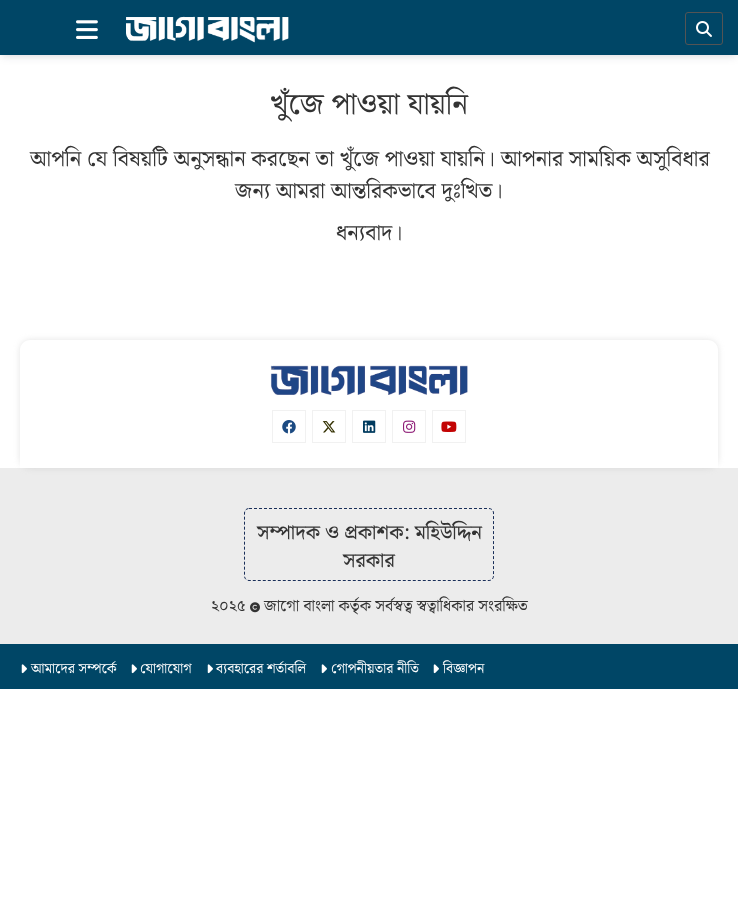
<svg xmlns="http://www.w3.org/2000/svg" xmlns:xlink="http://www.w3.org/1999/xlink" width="738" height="903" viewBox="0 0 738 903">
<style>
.cls-1{font:30px Noto Serif Bengali;fill:#333333}
.cls-2{font:22px Noto Serif Bengali;fill:#333333}
.cls-3{font:500 20px Noto Serif Bengali;fill:#333333}
.cls-4{font:16px Noto Serif Bengali;fill:#333333}
.cls-5{font:14px Noto Serif Bengali;fill:#ffffff}
</style>
<defs>
<clipPath id="clip1"><path d="M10 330H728V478H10ZM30 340H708C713.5 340 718 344.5 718 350V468H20V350C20 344.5 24.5 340 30 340Z" clip-rule="evenodd"/></clipPath>
</defs>
<rect width="100%" height="100%" fill="#ffffff"/>
<rect fill="#101828" fill-opacity="0.06" filter="blur(2px)" x="2" y="4" width="734" height="51"/>
<rect fill="#101828" fill-opacity="0.1" filter="blur(4px)" x="2" y="6" width="734" height="51"/>
<rect fill="#004666" x="0" y="0" width="738" height="55"/>
<image xlink:href="image0.png" x="76" y="20" width="22" height="19"/>
<image xlink:href="image1.png" x="126" y="16" width="163" height="27"/>
<rect fill="none" stroke="#545454" x="685.5" y="12.5" width="37" height="32" rx="2.5"/>
<image xlink:href="image2.png" x="696" y="21" width="16" height="16"/>
<rect fill="#ececec" x="0" y="468" width="738" height="176"/>
<g clip-path="url(#clip1)">
<rect fill="#bababa" fill-opacity="0.4" filter="blur(3px)" x="20" y="340" width="698" height="128" rx="10"/>
</g>
<image xlink:href="image3.png" x="270" y="365" width="198" height="30"/>
<rect fill="none" stroke="#f1f1f1" x="272.5" y="410.5" width="33" height="32"/>
<image xlink:href="image4.png" x="282" y="420" width="14" height="14"/>
<rect fill="none" stroke="#f1f1f1" x="312.5" y="410.5" width="33" height="32"/>
<image xlink:href="image5.png" x="322" y="421" width="14" height="12"/>
<rect fill="none" stroke="#f1f1f1" x="352.5" y="410.5" width="33" height="32"/>
<image xlink:href="image6.png" x="363" y="420" width="13" height="13"/>
<rect fill="none" stroke="#f1f1f1" x="392.5" y="410.5" width="33" height="32"/>
<image xlink:href="image7.png" x="403" y="420" width="13" height="13"/>
<rect fill="none" stroke="#f1f1f1" x="432.5" y="410.5" width="33" height="32"/>
<image xlink:href="image8.png" x="441" y="421" width="16" height="11"/>
<path fill="none" stroke="#192e59" stroke-dasharray="3 2" d="M249 508.5H489C491.5 508.5 493.5 510.5 493.5 513V576C493.5 578.5 491.5 580.5 489 580.5H249C246.5 580.5 244.5 578.5 244.5 576V513C244.5 510.5 246.5 508.5 249 508.5Z"/>
<image xlink:href="image9.png" x="250" y="602" width="10" height="11"/>
<rect fill="#004666" x="0" y="644" width="738" height="45"/>
<image xlink:href="image10.png" x="21" y="664" width="6" height="10"/>
<image xlink:href="image10.png" x="131" y="664" width="6" height="10"/>
<image xlink:href="image10.png" x="207" y="664" width="6" height="10"/>
<image xlink:href="image10.png" x="321" y="664" width="6" height="10"/>
<image xlink:href="image10.png" x="433" y="664" width="6" height="10"/>
<text class="cls-1" x="270" y="114">খুঁজে পাওয়া যায়নি</text>
<text class="cls-2" x="30" y="166">আপনি যে বিষয়টি অনুসন্ধান করছেন তা খুঁজে পাওয়া যায়নি। আপনার সাময়িক অসুবিধার</text>
<text class="cls-2" x="235" y="198">জন্য আমরা আন্তরিকভাবে দুঃখিত।</text>
<text class="cls-2" x="336" y="240">ধন্যবাদ।</text>
<text class="cls-3" x="257" y="539">সম্পাদক ও প্রকাশক: মহিউদ্দিন</text>
<text class="cls-3" x="343" y="567">সরকার</text>
<text class="cls-4" x="211" y="611">২০২৫</text>
<text class="cls-4" x="264" y="611">জাগো বাংলা কর্তৃক সর্বস্বত্ব স্বত্বাধিকার সংরক্ষিত</text>
<text class="cls-5" x="31" y="673">আমাদের সম্পর্কে</text>
<text class="cls-5" x="140" y="673">যোগাযোগ</text>
<text class="cls-5" x="216" y="673">ব্যবহারের শর্তাবলি</text>
<text class="cls-5" x="331" y="673">গোপনীয়তার নীতি</text>
<text class="cls-5" x="443" y="673">বিজ্ঞাপন</text>
</svg>
